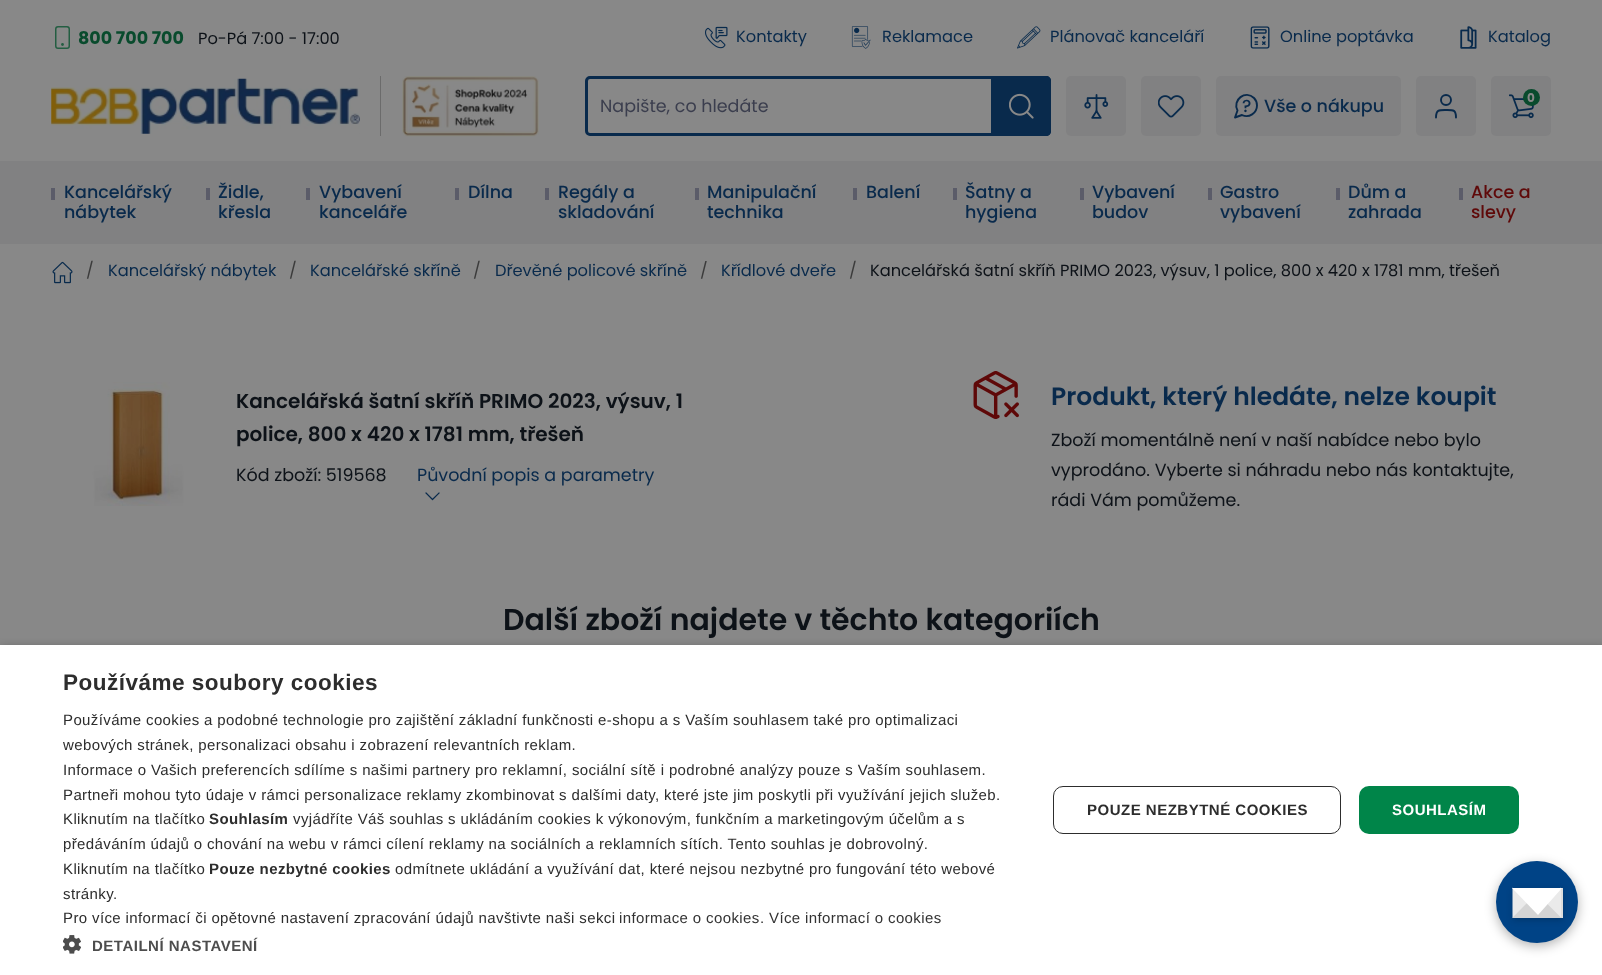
<svg xmlns="http://www.w3.org/2000/svg" xmlns:xlink="http://www.w3.org/1999/xlink" width="1602" height="975" viewBox="0 0 1602 975">
<style>
.cls-1{font:bold 17.5px Poppins;fill:#094b2d}
.cls-2{font:16.25px Poppins;fill:#0d1218}
.cls-3{font:16.25px Poppins;fill:#092a4c}
.cls-4{font:bold 12px Poppins;fill:#888888}
.cls-5{font:17.5px Poppins;fill:#3b3e4e}
.cls-6{font:500 17.5px Poppins;fill:#092a4c}
.cls-7{font:500 17.5px Poppins;fill:#5f0909}
.cls-8{font:16.25px Poppins;fill:#3b3b3b}
.cls-9{font:600 20px Poppins;fill:#0d1218}
.cls-10{font:17.5px Poppins;fill:#0d1218}
.cls-11{font:17.5px Poppins;fill:#092a4c}
.cls-12{font:600 25px Poppins;fill:#092a4c}
.cls-13{font:600 30px Poppins;fill:#0d1218}
.cls-14{font:bold 22.5px Liberation Sans;letter-spacing:0.5px;fill:#2d2d2d}
.cls-15{font:15px Liberation Sans;letter-spacing:0.38px;fill:#2d2d2d}
.cls-16{font:bold 15px Liberation Sans;letter-spacing:0.38px;fill:#2d2d2d}
.cls-17{font:15px Liberation Sans;letter-spacing:0.38px;fill:#333333}
.cls-18{font:bold 15px Liberation Sans;letter-spacing:0.5px;fill:#4d4d4d}
.cls-19{font:bold 15px Liberation Sans;letter-spacing:0.5px;fill:#2d2d2d}
.cls-20{font:bold 15px Liberation Sans;letter-spacing:0.5px;fill:#ffffff}
</style>
<defs>
<clipPath id="clip1"><rect x="51" y="261" width="1500" height="28"/></clipPath>
</defs>
<rect width="100%" height="100%" fill="#888888"/>
<rect fill="none" stroke="#245e42" stroke-width="1.5" x="55.75" y="26.75" width="13.5" height="21.5" rx="2.25"/>
<circle fill="#245e42" cx="62.5" cy="44.5" r="1.4"/>
<image xlink:href="image0.png" x="705" y="26" width="23" height="23"/>
<image xlink:href="image1.png" x="851" y="26" width="20" height="23"/>
<image xlink:href="image2.png" x="1017" y="26" width="24" height="23"/>
<image xlink:href="image3.png" x="1250" y="26" width="20" height="23"/>
<image xlink:href="image4.png" x="1460" y="26" width="17" height="23"/>
<image xlink:href="image5.png" x="51" y="78" width="309" height="56"/>
<rect fill="#6b6b6b" x="380" y="76" width="1" height="60"/>
<image xlink:href="image6.png" x="402" y="76" width="137" height="61"/>
<rect fill="#818182" x="1491" y="76" width="60" height="60" rx="5"/>
<image xlink:href="image7.png" x="1509" y="94" width="25" height="25"/>
<circle fill="#094b2d" cx="1531.5" cy="97.5" r="8.5"/>
<rect fill="none" stroke="#092a4c" stroke-width="3" x="586.5" y="77.5" width="463" height="57" rx="3.5"/>
<path fill="#092a4c" d="M991 76H1046C1049 76 1051 78 1051 81V131C1051 134 1049 136 1046 136H991Z"/>
<image xlink:href="image8.png" x="1009" y="93" width="25" height="26"/>
<rect fill="#818182" x="1066" y="76" width="60" height="60" rx="5"/>
<image xlink:href="image9.png" x="1084" y="94" width="25" height="25"/>
<rect fill="#818182" x="1141" y="76" width="60" height="60" rx="5"/>
<image xlink:href="image10.png" x="1158" y="95" width="27" height="23"/>
<rect fill="#818182" x="1216" y="76" width="185" height="60" rx="5"/>
<path fill="none" stroke="#092a4c" stroke-width="1.9" stroke-linecap="round" stroke-linejoin="round" d="M1257 105.5C1257 113 1249 118.5 1242 115L1235 117.5L1237.5 110.5C1232 100 1245.5 89.5 1254 98C1256 100 1257 103 1257 105.5Z"/>
<rect fill="#818182" x="1416" y="76" width="60" height="60" rx="5"/>
<path fill="none" stroke="#092a4c" stroke-width="1.9" stroke-linecap="round" stroke-linejoin="round" d="M1456 117.5C1456 109.5 1453 110 1446 110C1439.5 110 1436 109.5 1436 117.5"/>
<circle fill="none" stroke="#092a4c" stroke-width="1.9" cx="1446" cy="100" r="5"/>
<rect fill="#818182" x="0" y="161" width="1602" height="83"/>
<rect fill="#5b5c69" x="51" y="188" width="4" height="12"/>
<rect fill="#5b5c69" x="206" y="188" width="4" height="12"/>
<rect fill="#5b5c69" x="306" y="188" width="4" height="12"/>
<rect fill="#5b5c69" x="455" y="188" width="4" height="12"/>
<rect fill="#5b5c69" x="545" y="188" width="4" height="12"/>
<rect fill="#5b5c69" x="695" y="188" width="4" height="12"/>
<rect fill="#5b5c69" x="853" y="188" width="4" height="12"/>
<rect fill="#5b5c69" x="953" y="188" width="4" height="12"/>
<rect fill="#5b5c69" x="1080" y="188" width="4" height="12"/>
<rect fill="#5b5c69" x="1208" y="188" width="4" height="12"/>
<rect fill="#5b5c69" x="1336" y="188" width="4" height="12"/>
<rect fill="#5b5c69" x="1459" y="188" width="4" height="12"/>
<image xlink:href="image11.png" x="52" y="261" width="21" height="23"/>
<image xlink:href="image12.png" x="77" y="382" width="124" height="124"/>
<path fill="none" stroke="#092a4c" stroke-width="1.2" stroke-linecap="square" stroke-linejoin="round" d="M426 493L432.5 499.5L439 493"/>
<image xlink:href="image13.png" x="973" y="371" width="46" height="48"/>
<rect fill="#000000" fill-opacity="0.35" filter="blur(5px)" x="1" y="648" width="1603" height="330"/>
<rect fill="#ffffff" x="0" y="645" width="1602" height="330"/>
<image xlink:href="image14.png" x="63" y="935" width="18" height="19"/>
<rect fill="none" stroke="#2d2d2d" x="1053.5" y="786.5" width="287" height="47" rx="9.5"/>
<rect fill="#008549" x="1359" y="786" width="160" height="48" rx="10"/>
<rect fill="#000000" fill-opacity="0.3" filter="blur(6px)" x="1496" y="865" width="82" height="81" rx="40.5"/>
<circle fill="#004386" cx="1537" cy="902" r="41"/>
<rect fill="#000000" fill-opacity="0.2" filter="blur(3px)" x="1513" y="890" width="50" height="30"/>
<rect fill="#dddddd" x="1513" y="888" width="50" height="30"/>
<path fill="#d4d4d4" d="M1562 918H1512L1538 890Z"/>
<path fill="#eaeaea" d="M1512.5 917.5V887.5L1527.5 902.5ZM1561 887.5V917.5L1546 902.5Z"/>
<path fill="#ffffff" d="M1512 888H1562L1538 915Z"/>
<text class="cls-1" x="78" y="44">800 700 700</text>
<text class="cls-2" x="198" y="44">Po-Pá 7:00 - 17:00</text>
<text class="cls-3" x="736" y="42">Kontakty</text>
<text class="cls-3" x="882" y="42">Reklamace</text>
<text class="cls-3" x="1050" y="42">Plánovač kanceláří</text>
<text class="cls-3" x="1280" y="42">Online poptávka</text>
<text class="cls-3" x="1488" y="42">Katalog</text>
<text class="cls-4" x="1527" y="102">0</text>
<text class="cls-5" x="600" y="112">Napište, co hledáte</text>
<text class="cls-6" x="1264" y="112">Vše o nákupu</text>
<text class="cls-6" x="1242" y="112">?</text>
<text class="cls-6"><tspan x="64" y="198">Kancelářský</tspan><tspan x="64" y="218">nábytek</tspan></text>
<text class="cls-6"><tspan x="218" y="198">Židle,</tspan><tspan x="218" y="218">křesla</tspan></text>
<text class="cls-6"><tspan x="319" y="198">Vybavení</tspan><tspan x="319" y="218">kanceláře</tspan></text>
<text class="cls-6" x="468" y="198">Dílna</text>
<text class="cls-6"><tspan x="558" y="198">Regály a</tspan><tspan x="558" y="218">skladování</tspan></text>
<text class="cls-6"><tspan x="707" y="198">Manipulační</tspan><tspan x="707" y="218">technika</tspan></text>
<text class="cls-6" x="866" y="198">Balení</text>
<text class="cls-6"><tspan x="965" y="198">Šatny a</tspan><tspan x="965" y="218">hygiena</tspan></text>
<text class="cls-6"><tspan x="1092" y="198">Vybavení</tspan><tspan x="1092" y="218">budov</tspan></text>
<text class="cls-6"><tspan x="1220" y="198">Gastro</tspan><tspan x="1220" y="218">vybavení</tspan></text>
<text class="cls-6"><tspan x="1348" y="198">Dům a</tspan><tspan x="1348" y="218">zahrada</tspan></text>
<text class="cls-7"><tspan x="1471" y="198">Akce a</tspan><tspan x="1471" y="218">slevy</tspan></text>
<text class="cls-8" x="86" y="276">/</text>
<text class="cls-3" x="108" y="276">Kancelářský nábytek</text>
<text class="cls-8" x="289" y="276">/</text>
<text class="cls-3" x="310" y="276">Kancelářské skříně</text>
<text class="cls-8" x="473" y="276">/</text>
<text class="cls-3" x="495" y="276">Dřevěné policové skříně</text>
<g clip-path="url(#clip1)">
<text class="cls-8" x="700" y="276">/</text>
</g>
<text class="cls-3" x="721" y="276">Křídlové dveře</text>
<text class="cls-8" x="849" y="276">/</text>
<text class="cls-2" x="870" y="276">Kancelářská šatní skříň PRIMO 2023, výsuv, 1 police, 800 x 420 x 1781 mm, třešeň</text>
<text class="cls-9"><tspan x="236" y="408">Kancelářská šatní skříň PRIMO 2023, výsuv, 1</tspan><tspan x="236" y="441">police, 800 x 420 x 1781 mm, třešeň</tspan></text>
<text class="cls-10" x="236" y="481">Kód zboží: 519568</text>
<text class="cls-11" x="417" y="481">Původní popis a parametry</text>
<text class="cls-12" x="1051" y="405">Produkt, který hledáte, nelze koupit</text>
<text class="cls-10"><tspan x="1051" y="446">Zboží momentálně není v naší nabídce nebo bylo</tspan><tspan x="1051" y="476">vyprodáno. Vyberte si náhradu nebo nás kontaktujte,</tspan><tspan x="1051" y="506">rádi Vám pomůžeme.</tspan></text>
<text class="cls-13" x="503" y="630">Další zboží najdete v těchto kategoriích</text>
<text class="cls-14" x="63" y="690">Používáme soubory cookies</text>
<text class="cls-15"><tspan x="63" y="725">Používáme cookies a podobné technologie pro zajištění základní funkčnosti e-shopu a s Vaším souhlasem také pro optimalizaci</tspan><tspan x="63" y="750">webových stránek, personalizaci obsahu i zobrazení relevantních reklam.</tspan><tspan x="63" y="775">Informace o Vašich preferencích sdílíme s našimi partnery pro reklamní, sociální sítě i podrobné analýzy pouze s Vaším souhlasem.</tspan><tspan x="63" y="800">Partneři mohou tyto údaje v rámci personalizace reklamy zkombinovat s dalšími daty, které jste jim poskytli při využívání jejich služeb.</tspan><tspan x="63" y="824">Kliknutím na tlačítko</tspan></text>
<text class="cls-16" x="209" y="824">Souhlasím</text>
<text class="cls-15" x="293" y="824">vyjádříte Váš souhlas s ukládáním cookies k výkonovým, funkčním a marketingovým účelům a s</text>
<text class="cls-15"><tspan x="63" y="849">předáváním údajů o chování na webu v rámci cílení reklamy na sociálních a reklamních sítích. Tento souhlas je dobrovolný.</tspan><tspan x="63" y="874">Kliknutím na tlačítko</tspan></text>
<text class="cls-16" x="209" y="874">Pouze nezbytné cookies</text>
<text class="cls-15" x="395" y="874">odmítnete ukládání a využívání dat, které nejsou nezbytné pro fungování této webové</text>
<text class="cls-15"><tspan x="63" y="899">stránky.</tspan><tspan x="63" y="923">Pro více informací či opětovné nastavení zpracování údajů navštivte naši sekci</tspan></text>
<text class="cls-17" x="619" y="923">informace o cookies</text>
<text class="cls-15" x="760" y="923">.</text>
<text class="cls-17" x="769" y="923">Více informací o cookies</text>
<text class="cls-18" x="92" y="951">DETAILNÍ NASTAVENÍ</text>
<text class="cls-19" x="1087" y="815">POUZE NEZBYTNÉ COOKIES</text>
<text class="cls-20" x="1392" y="815">SOUHLASÍM</text>
</svg>
